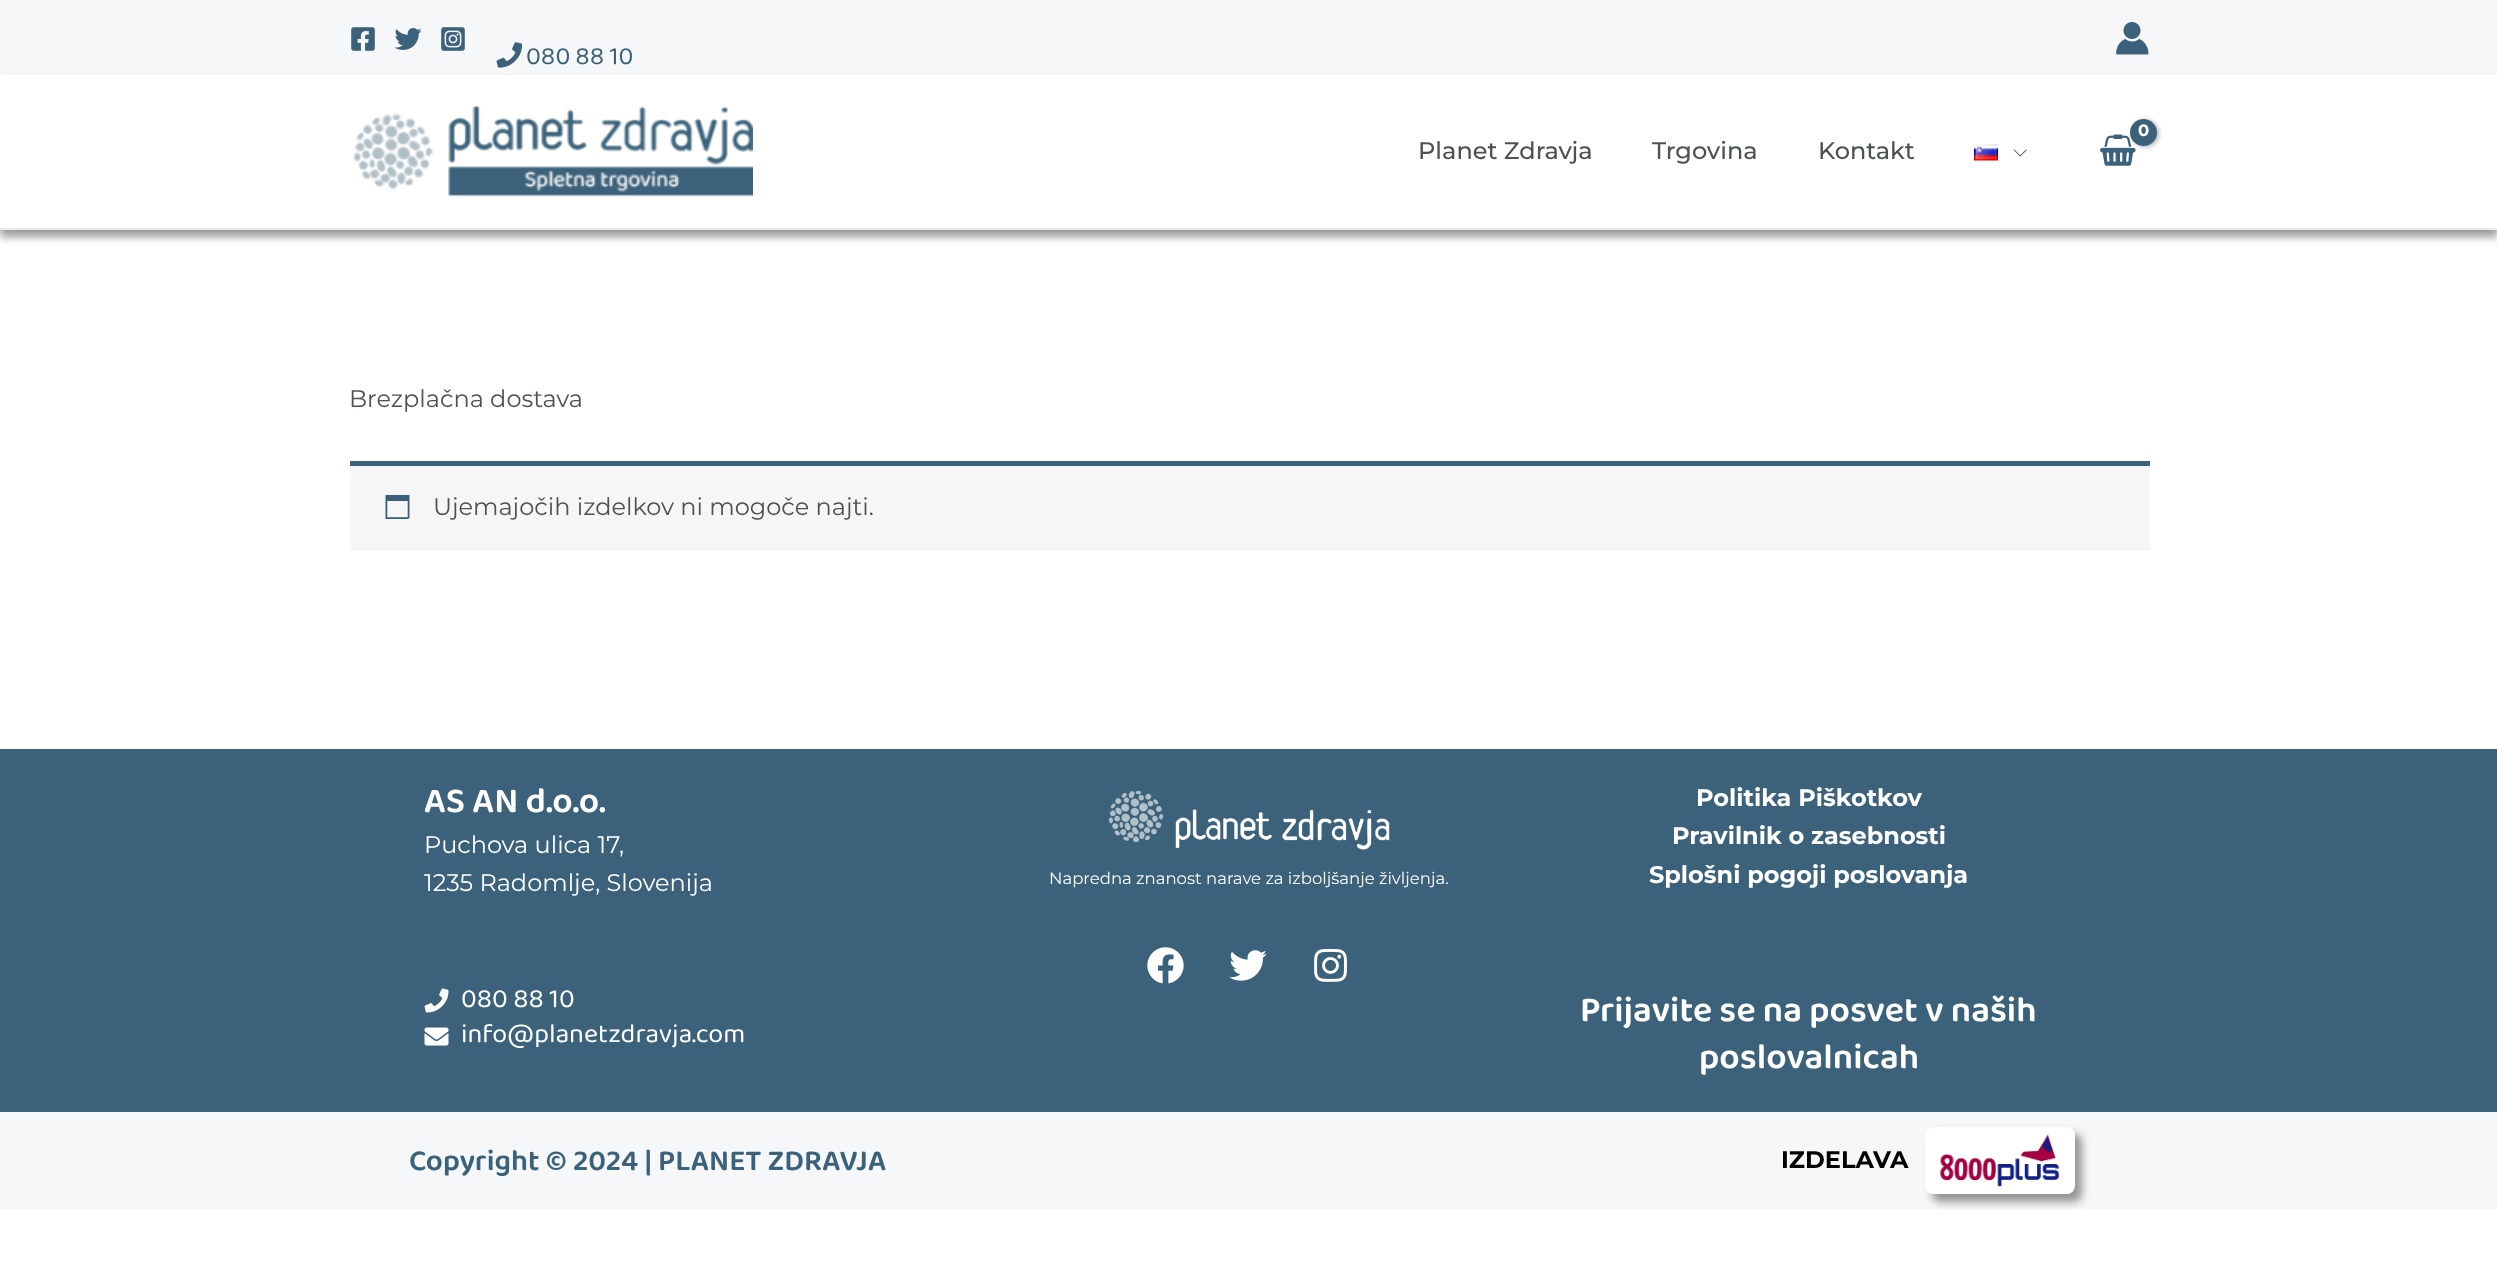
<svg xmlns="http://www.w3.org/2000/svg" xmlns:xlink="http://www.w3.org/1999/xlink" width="2497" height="1270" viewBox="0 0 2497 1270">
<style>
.cls-1{font:25.5px 'Baloo 2';fill:#3b627a}
.cls-2{font:bold 16.5px Montserrat;letter-spacing:-1px;fill:#ffffff}
.cls-3{font:500 24px Montserrat;fill:#4c5253}
.cls-4{font:24px Montserrat;fill:#4c5253}
.cls-5{font:600 36px 'Baloo 2';fill:#ffffff}
.cls-6{font:24px Montserrat;fill:#ffffff}
.cls-7{font:27px 'Baloo 2';fill:#ffffff}
.cls-8{font:16.5px Montserrat;fill:#ffffff}
.cls-9{font:bold 24px Montserrat;fill:#ffffff}
.cls-10{font:600 30px 'Baloo 2';fill:#3b627a}
.cls-11{font:bold 24px Montserrat;fill:#000000}
</style>
<rect width="100%" height="100%" fill="#ffffff"/>
<rect fill="#f6f7f8" x="0" y="0" width="2497" height="75"/>
<image xlink:href="image0.png" x="351" y="27" width="24" height="24"/>
<image xlink:href="image1.png" x="395" y="28" width="27" height="22"/>
<image xlink:href="image2.png" x="441" y="27" width="24" height="24"/>
<image xlink:href="image3.png" x="496" y="42" width="26" height="26"/>
<image xlink:href="image4.png" x="2116" y="22" width="33" height="33"/>
<rect fill="#222222" fill-opacity="0.46" filter="blur(4px)" x="0" y="83" width="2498" height="154"/>
<rect fill="#ffffff" x="0" y="75" width="2497" height="153"/>
<rect fill="#eaeaea" x="0" y="228" width="2497" height="2"/>
<image xlink:href="image5.png" x="353" y="106" width="400" height="91"/>
<image xlink:href="image6.png" x="2100" y="134" width="36" height="32"/>
<rect fill="#000000" fill-opacity="0.3" filter="blur(2px)" x="2132" y="120" width="27" height="27" rx="13.5"/>
<circle fill="#3b627a" cx="2143.5" cy="132.5" r="13.5"/>
<image xlink:href="image7.png" x="1974" y="144" width="24" height="17"/>
<image xlink:href="image8.png" x="2013" y="149" width="14" height="8"/>
<rect fill="#f7f6f7" x="350" y="466" width="1800" height="85"/>
<rect fill="#3b627a" x="350" y="461" width="1800" height="5"/>
<image xlink:href="image9.png" x="385" y="495" width="25" height="24"/>
<rect fill="#3b627a" x="0" y="749" width="2497" height="363"/>
<image xlink:href="image10.png" x="424" y="988" width="25" height="25"/>
<image xlink:href="image11.png" x="424" y="1027" width="25" height="19"/>
<image xlink:href="image12.png" x="1108" y="790" width="282" height="60"/>
<image xlink:href="image13.png" x="1147" y="947" width="37" height="37"/>
<image xlink:href="image14.png" x="1229" y="950" width="38" height="31"/>
<image xlink:href="image15.png" x="1314" y="948" width="33" height="34"/>
<rect fill="#f6f7f8" x="0" y="1112" width="2497" height="97"/>
<rect fill="#222222" fill-opacity="0.46" filter="blur(4px)" x="1932" y="1134" width="150" height="68" rx="8"/>
<rect fill="#ffffff" x="1925" y="1127" width="150" height="67" rx="8"/>
<image xlink:href="image16.png" x="1939" y="1134" width="121" height="53"/>
<text class="cls-1" x="526" y="64">080 88 10</text>
<text class="cls-2" x="2138" y="136">0</text>
<text class="cls-3" x="1418" y="159">Planet Zdravja</text>
<text class="cls-3" x="1652" y="159">Trgovina</text>
<text class="cls-3" x="1818" y="159">Kontakt</text>
<text class="cls-4" x="349" y="407">Brezplačna dostava</text>
<text class="cls-4" x="433" y="515">Ujemajočih izdelkov ni mogoče najti.</text>
<text class="cls-5" x="424" y="812">AS AN d.o.o.</text>
<text class="cls-6"><tspan x="424" y="853">Puchova ulica 17,</tspan><tspan x="424" y="891">1235 Radomlje, Slovenija</tspan></text>
<text class="cls-7"><tspan x="461" y="1007">080 88 10</tspan><tspan x="461" y="1042">info@planetzdravja.com</tspan></text>
<text class="cls-8" x="1049" y="884">Napredna znanost narave za izboljšanje življenja.</text>
<text class="cls-9" x="1696" y="806">Politika Piškotkov</text>
<text class="cls-9" x="1672" y="844">Pravilnik o zasebnosti</text>
<text class="cls-9" x="1649" y="883">Splošni pogoji poslovanja</text>
<text class="cls-5" x="1580" y="1021">Prijavite se na posvet v naših</text>
<text class="cls-5" x="1699" y="1068">poslovalnicah</text>
<text class="cls-10" x="409" y="1170">Copyright © 2024 | PLANET ZDRAVJA</text>
<text class="cls-11" x="1781" y="1168">IZDELAVA</text>
</svg>
